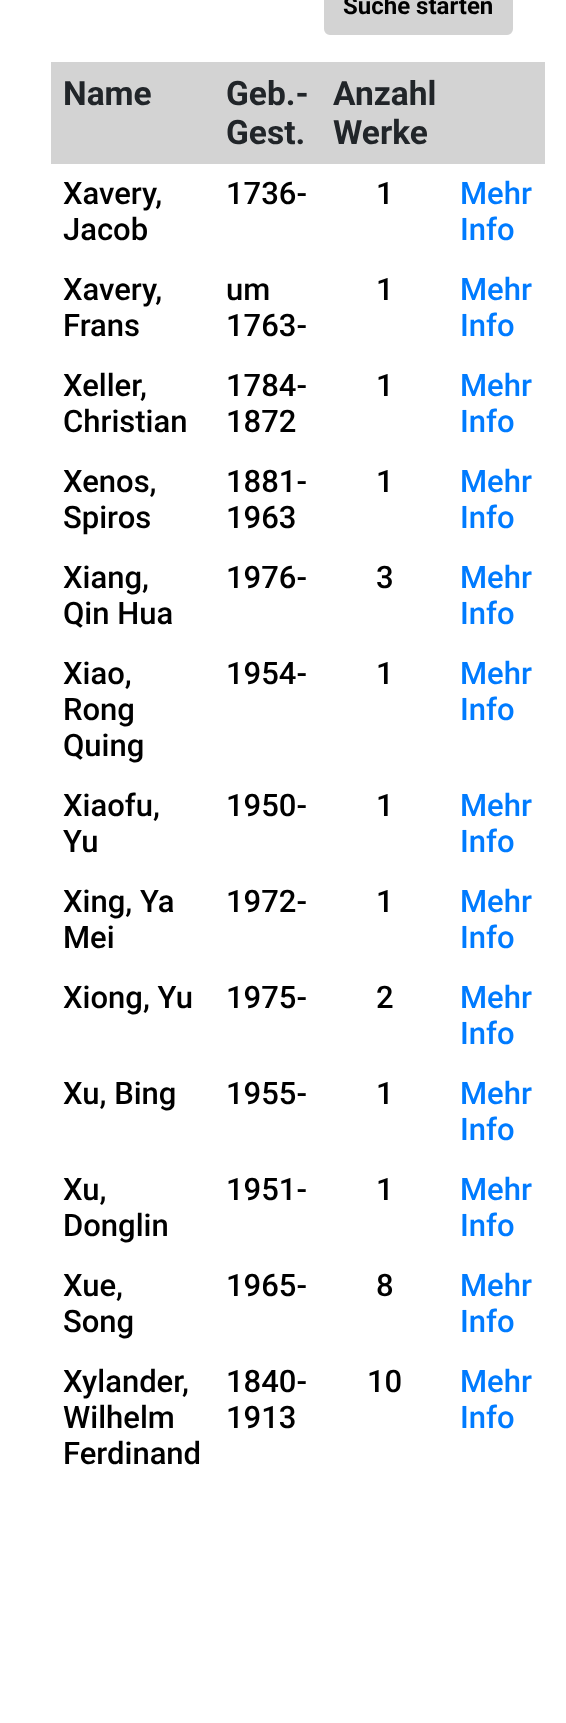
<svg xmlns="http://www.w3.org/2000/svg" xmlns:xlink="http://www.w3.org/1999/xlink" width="566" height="1723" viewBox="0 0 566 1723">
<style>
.cls-1{font:bold 24px Roboto;fill:#000000}
.cls-2{font:bold 33.5px Roboto;fill:#212529}
.cls-3{font:500 31px Roboto;fill:#000000}
.cls-4{font:500 31px Roboto;fill:#007bff}
</style>
<rect width="100%" height="100%" fill="#ffffff"/>
<rect fill="#d3d3d3" stroke="#d3d3d3" stroke-width="2" x="325" y="-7" width="187" height="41" rx="5"/>
<rect fill="#d3d3d3" x="51" y="62" width="494" height="102"/>
<text class="cls-1" x="343" y="14">Suche starten</text>
<text class="cls-2" x="63" y="105">Name</text>
<text class="cls-2"><tspan x="226" y="105">Geb.-</tspan><tspan x="226" y="144">Gest.</tspan></text>
<text class="cls-2"><tspan x="333" y="105">Anzahl</tspan><tspan x="333" y="144">Werke</tspan></text>
<text class="cls-3"><tspan x="63" y="204">Xavery,</tspan><tspan x="63" y="240">Jacob</tspan></text>
<text class="cls-3" x="226" y="204">1736-</text>
<text class="cls-3" x="376" y="204">1</text>
<text class="cls-4"><tspan x="460" y="204">Mehr</tspan><tspan x="460" y="240">Info</tspan></text>
<text class="cls-3"><tspan x="63" y="300">Xavery,</tspan><tspan x="63" y="336">Frans</tspan></text>
<text class="cls-3"><tspan x="226" y="300">um</tspan><tspan x="226" y="336">1763-</tspan></text>
<text class="cls-3" x="376" y="300">1</text>
<text class="cls-4"><tspan x="460" y="300">Mehr</tspan><tspan x="460" y="336">Info</tspan></text>
<text class="cls-3"><tspan x="63" y="396">Xeller,</tspan><tspan x="63" y="432">Christian</tspan></text>
<text class="cls-3"><tspan x="226" y="396">1784-</tspan><tspan x="226" y="432">1872</tspan></text>
<text class="cls-3" x="376" y="396">1</text>
<text class="cls-4"><tspan x="460" y="396">Mehr</tspan><tspan x="460" y="432">Info</tspan></text>
<text class="cls-3"><tspan x="63" y="492">Xenos,</tspan><tspan x="63" y="528">Spiros</tspan></text>
<text class="cls-3"><tspan x="226" y="492">1881-</tspan><tspan x="226" y="528">1963</tspan></text>
<text class="cls-3" x="376" y="492">1</text>
<text class="cls-4"><tspan x="460" y="492">Mehr</tspan><tspan x="460" y="528">Info</tspan></text>
<text class="cls-3"><tspan x="63" y="588">Xiang,</tspan><tspan x="63" y="624">Qin Hua</tspan></text>
<text class="cls-3" x="226" y="588">1976-</text>
<text class="cls-3" x="376" y="588">3</text>
<text class="cls-4"><tspan x="460" y="588">Mehr</tspan><tspan x="460" y="624">Info</tspan></text>
<text class="cls-3"><tspan x="63" y="684">Xiao,</tspan><tspan x="63" y="720">Rong</tspan><tspan x="63" y="756">Quing</tspan></text>
<text class="cls-3" x="226" y="684">1954-</text>
<text class="cls-3" x="376" y="684">1</text>
<text class="cls-4"><tspan x="460" y="684">Mehr</tspan><tspan x="460" y="720">Info</tspan></text>
<text class="cls-3"><tspan x="63" y="816">Xiaofu,</tspan><tspan x="63" y="852">Yu</tspan></text>
<text class="cls-3" x="226" y="816">1950-</text>
<text class="cls-3" x="376" y="816">1</text>
<text class="cls-4"><tspan x="460" y="816">Mehr</tspan><tspan x="460" y="852">Info</tspan></text>
<text class="cls-3"><tspan x="63" y="912">Xing, Ya</tspan><tspan x="63" y="948">Mei</tspan></text>
<text class="cls-3" x="226" y="912">1972-</text>
<text class="cls-3" x="376" y="912">1</text>
<text class="cls-4"><tspan x="460" y="912">Mehr</tspan><tspan x="460" y="948">Info</tspan></text>
<text class="cls-3" x="63" y="1008">Xiong, Yu</text>
<text class="cls-3" x="226" y="1008">1975-</text>
<text class="cls-3" x="376" y="1008">2</text>
<text class="cls-4"><tspan x="460" y="1008">Mehr</tspan><tspan x="460" y="1044">Info</tspan></text>
<text class="cls-3" x="63" y="1104">Xu, Bing</text>
<text class="cls-3" x="226" y="1104">1955-</text>
<text class="cls-3" x="376" y="1104">1</text>
<text class="cls-4"><tspan x="460" y="1104">Mehr</tspan><tspan x="460" y="1140">Info</tspan></text>
<text class="cls-3"><tspan x="63" y="1200">Xu,</tspan><tspan x="63" y="1236">Donglin</tspan></text>
<text class="cls-3" x="226" y="1200">1951-</text>
<text class="cls-3" x="376" y="1200">1</text>
<text class="cls-4"><tspan x="460" y="1200">Mehr</tspan><tspan x="460" y="1236">Info</tspan></text>
<text class="cls-3"><tspan x="63" y="1296">Xue,</tspan><tspan x="63" y="1332">Song</tspan></text>
<text class="cls-3" x="226" y="1296">1965-</text>
<text class="cls-3" x="376" y="1296">8</text>
<text class="cls-4"><tspan x="460" y="1296">Mehr</tspan><tspan x="460" y="1332">Info</tspan></text>
<text class="cls-3"><tspan x="63" y="1392">Xylander,</tspan><tspan x="63" y="1428">Wilhelm</tspan><tspan x="63" y="1464">Ferdinand</tspan></text>
<text class="cls-3"><tspan x="226" y="1392">1840-</tspan><tspan x="226" y="1428">1913</tspan></text>
<text class="cls-3" x="367" y="1392">10</text>
<text class="cls-4"><tspan x="460" y="1392">Mehr</tspan><tspan x="460" y="1428">Info</tspan></text>
</svg>
